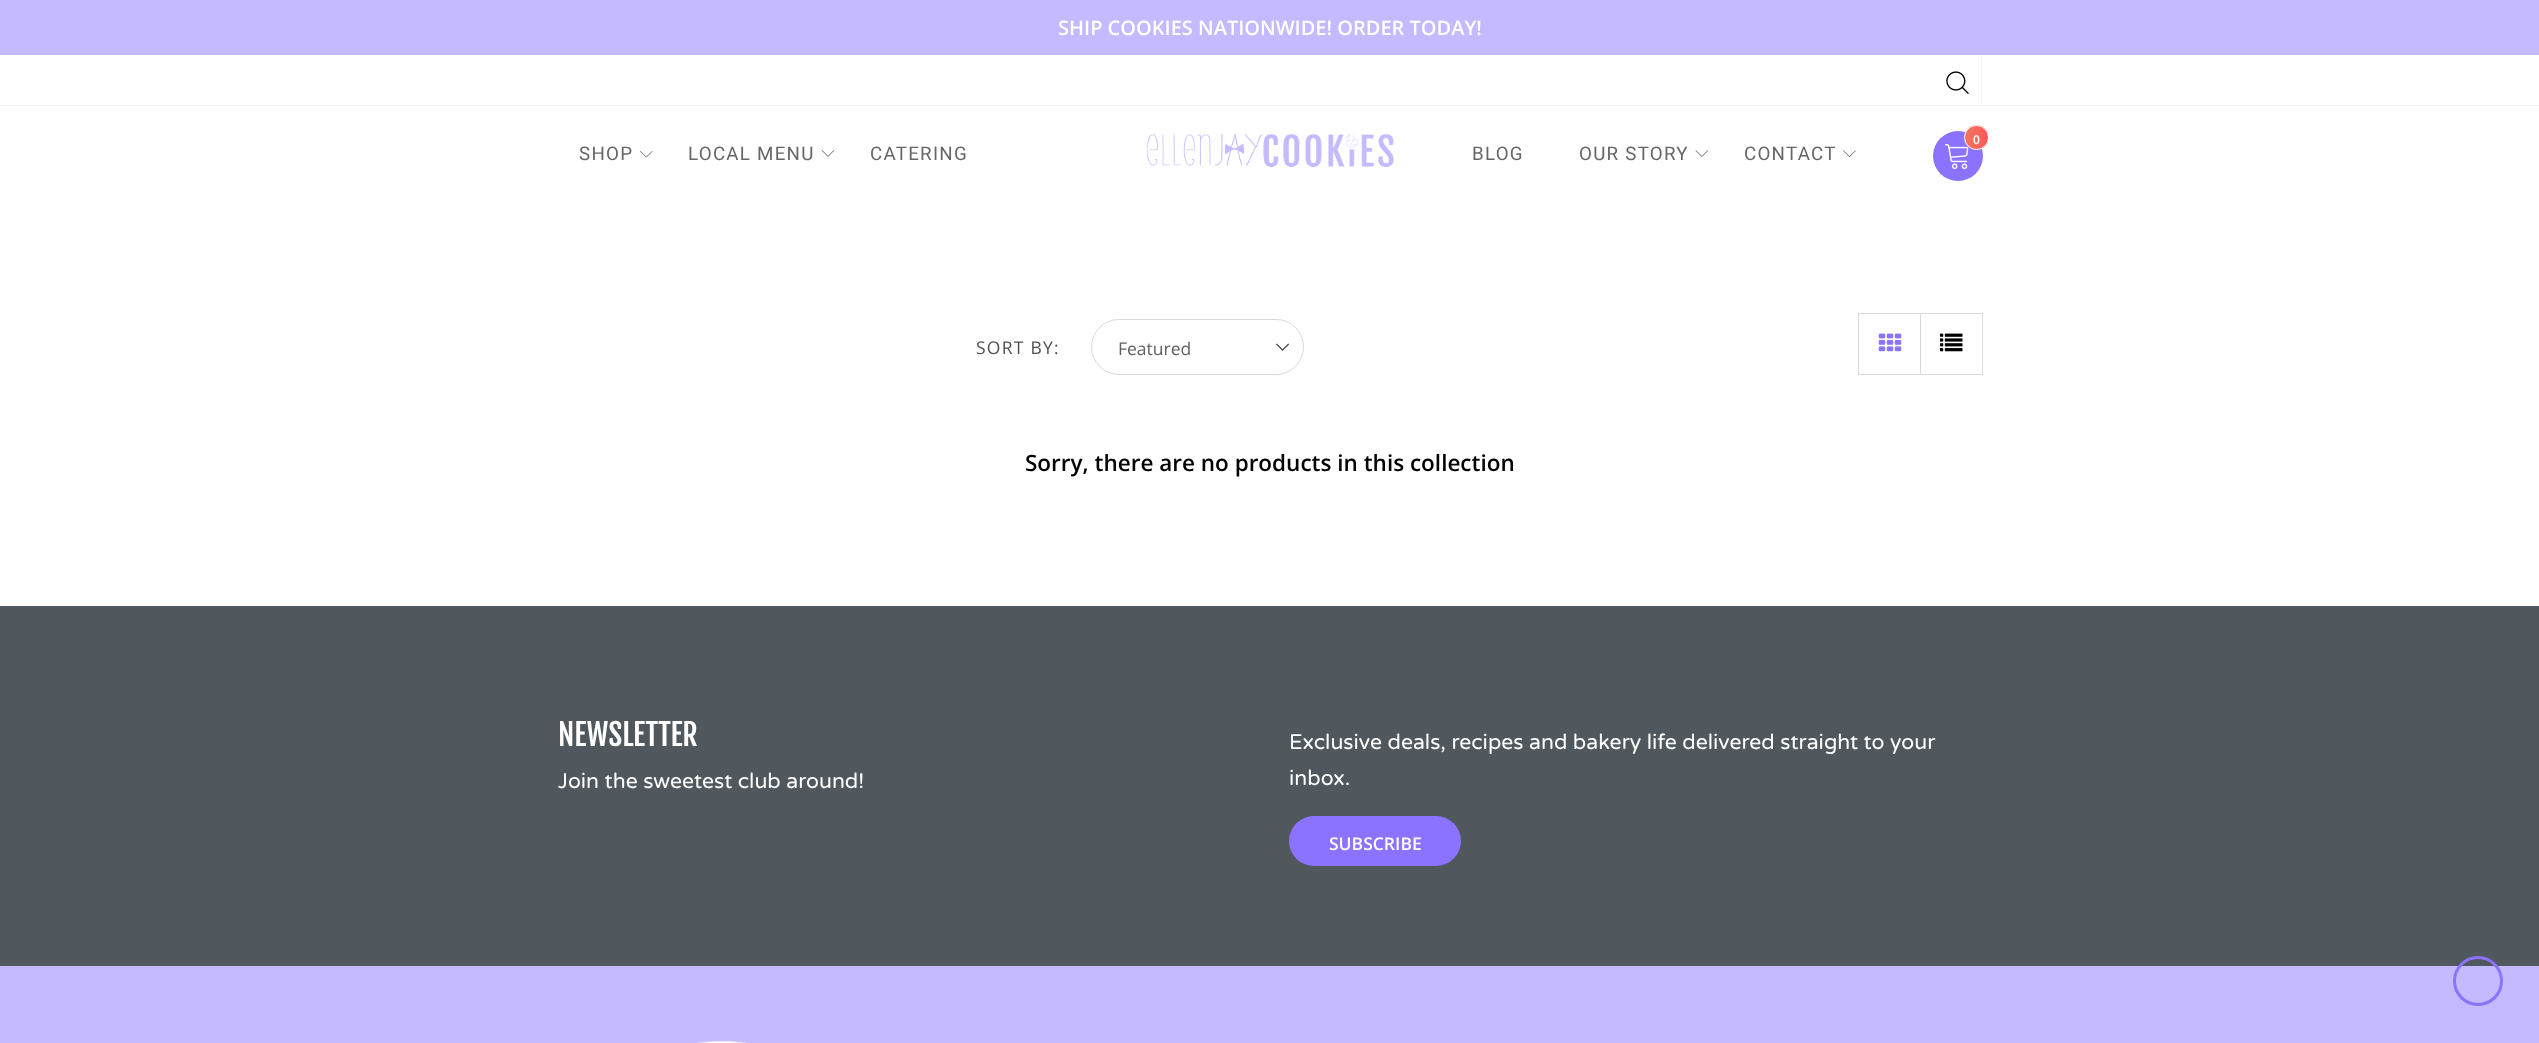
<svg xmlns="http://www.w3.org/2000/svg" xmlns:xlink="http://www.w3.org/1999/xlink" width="2539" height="1043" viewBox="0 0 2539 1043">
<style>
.cls-1{font:600 20px Open Sans;fill:#ffffff}
.cls-2{font:18.75px Roboto;letter-spacing:1.25px;fill:#666666}
.cls-3{font:600 12px Open Sans;fill:#ffffff}
.cls-4{font:17.5px Open Sans;letter-spacing:1.25px;fill:#505050}
.cls-5{font:17.5px Open Sans;fill:#606060}
.cls-6{font:600 22.5px Open Sans;fill:#000000}
.cls-7{font:30px Fjalla One;fill:#ffffff}
.cls-8{font:21.25px Varela Round;fill:#ffffff}
.cls-9{font:600 17.5px Open Sans;fill:#ffffff}
</style>
<defs>
<clipPath id="clip1"><rect x="1964" y="125" width="25" height="25" rx="12.5"/></clipPath>
<linearGradient id="g1" gradientUnits="userSpaceOnUse" x1="1965" y1="138" x2="1988" y2="138"><stop offset="0" stop-color="#ee7560"/><stop offset="1" stop-color="#ff5858"/></linearGradient>
</defs>
<rect width="100%" height="100%" fill="#ffffff"/>
<rect fill="#c5b9ff" x="0" y="0" width="2539" height="55"/>
<rect fill="#f3f3f3" x="0" y="105" width="2539" height="1"/>
<rect fill="#f3f3f3" x="1981" y="55" width="1" height="50"/>
<image xlink:href="image0.png" x="1946" y="71" width="23" height="23"/>
<image xlink:href="image1.png" x="640" y="151" width="13" height="7"/>
<image xlink:href="image2.png" x="821" y="150" width="14" height="7"/>
<image xlink:href="image3.png" x="1146" y="133" width="248" height="34"/>
<circle fill="#8b73ff" cx="1958" cy="156" r="25"/>
<image xlink:href="image4.png" x="1945" y="144" width="24" height="25"/>
<g clip-path="url(#clip1)">
<rect fill="url(#g1)" x="1965" y="125" width="23" height="25"/>
</g>
<circle fill="none" stroke="#ffffff" cx="1976.5" cy="137.5" r="12"/>
<image xlink:href="image5.png" x="1695" y="150" width="13" height="7"/>
<image xlink:href="image6.png" x="1843" y="150" width="13" height="7"/>
<image xlink:href="image7.png" x="1276" y="343" width="13" height="8"/>
<rect fill="none" stroke="#d9d9d9" x="1091.5" y="319.5" width="212" height="55" rx="27.5"/>
<rect fill="#d9d9d9" x="1858" y="313" width="62" height="1"/>
<rect fill="#d9d9d9" x="1858" y="374" width="62" height="1"/>
<rect fill="#d9d9d9" x="1858" y="313" width="1" height="62"/>
<image xlink:href="image8.png" x="1878" y="333" width="24" height="19"/>
<rect fill="none" stroke="#d9d9d9" x="1920.5" y="313.5" width="62" height="61"/>
<image xlink:href="image9.png" x="1940" y="333" width="23" height="19"/>
<rect fill="#50585e" x="0" y="606" width="2539" height="360"/>
<rect fill="#8b73ff" x="1289" y="816" width="172" height="50" rx="25"/>
<rect fill="#c5b9ff" x="0" y="966" width="2539" height="77"/>
<circle fill="none" stroke="#8b73ff" stroke-width="3" cx="2478" cy="981" r="23.5"/>
<image xlink:href="image10.png" x="697" y="1041" width="50" height="2"/>
<text class="cls-1" x="1058" y="35">SHIP COOKIES NATIONWIDE! ORDER TODAY!</text>
<text class="cls-2" x="579" y="160">SHOP</text>
<text class="cls-2" x="688" y="160">LOCAL MENU</text>
<text class="cls-2" x="870" y="160">CATERING</text>
<text class="cls-3" x="1973" y="144">0</text>
<text class="cls-2" x="1472" y="160">BLOG</text>
<text class="cls-2" x="1579" y="160">OUR STORY</text>
<text class="cls-2" x="1744" y="160">CONTACT</text>
<text class="cls-4" x="976" y="354">SORT BY:</text>
<text class="cls-5" x="1118" y="355">Featured</text>
<text class="cls-6" x="1025" y="471">Sorry, there are no products in this collection</text>
<text class="cls-7" x="558" y="746">NEWSLETTER</text>
<text class="cls-8" x="558" y="788">Join the sweetest club around!</text>
<text class="cls-8"><tspan x="1289" y="749">Exclusive deals, recipes and bakery life delivered straight to your</tspan><tspan x="1289" y="785">inbox.</tspan></text>
<text class="cls-9" x="1329" y="850">SUBSCRIBE</text>
</svg>
